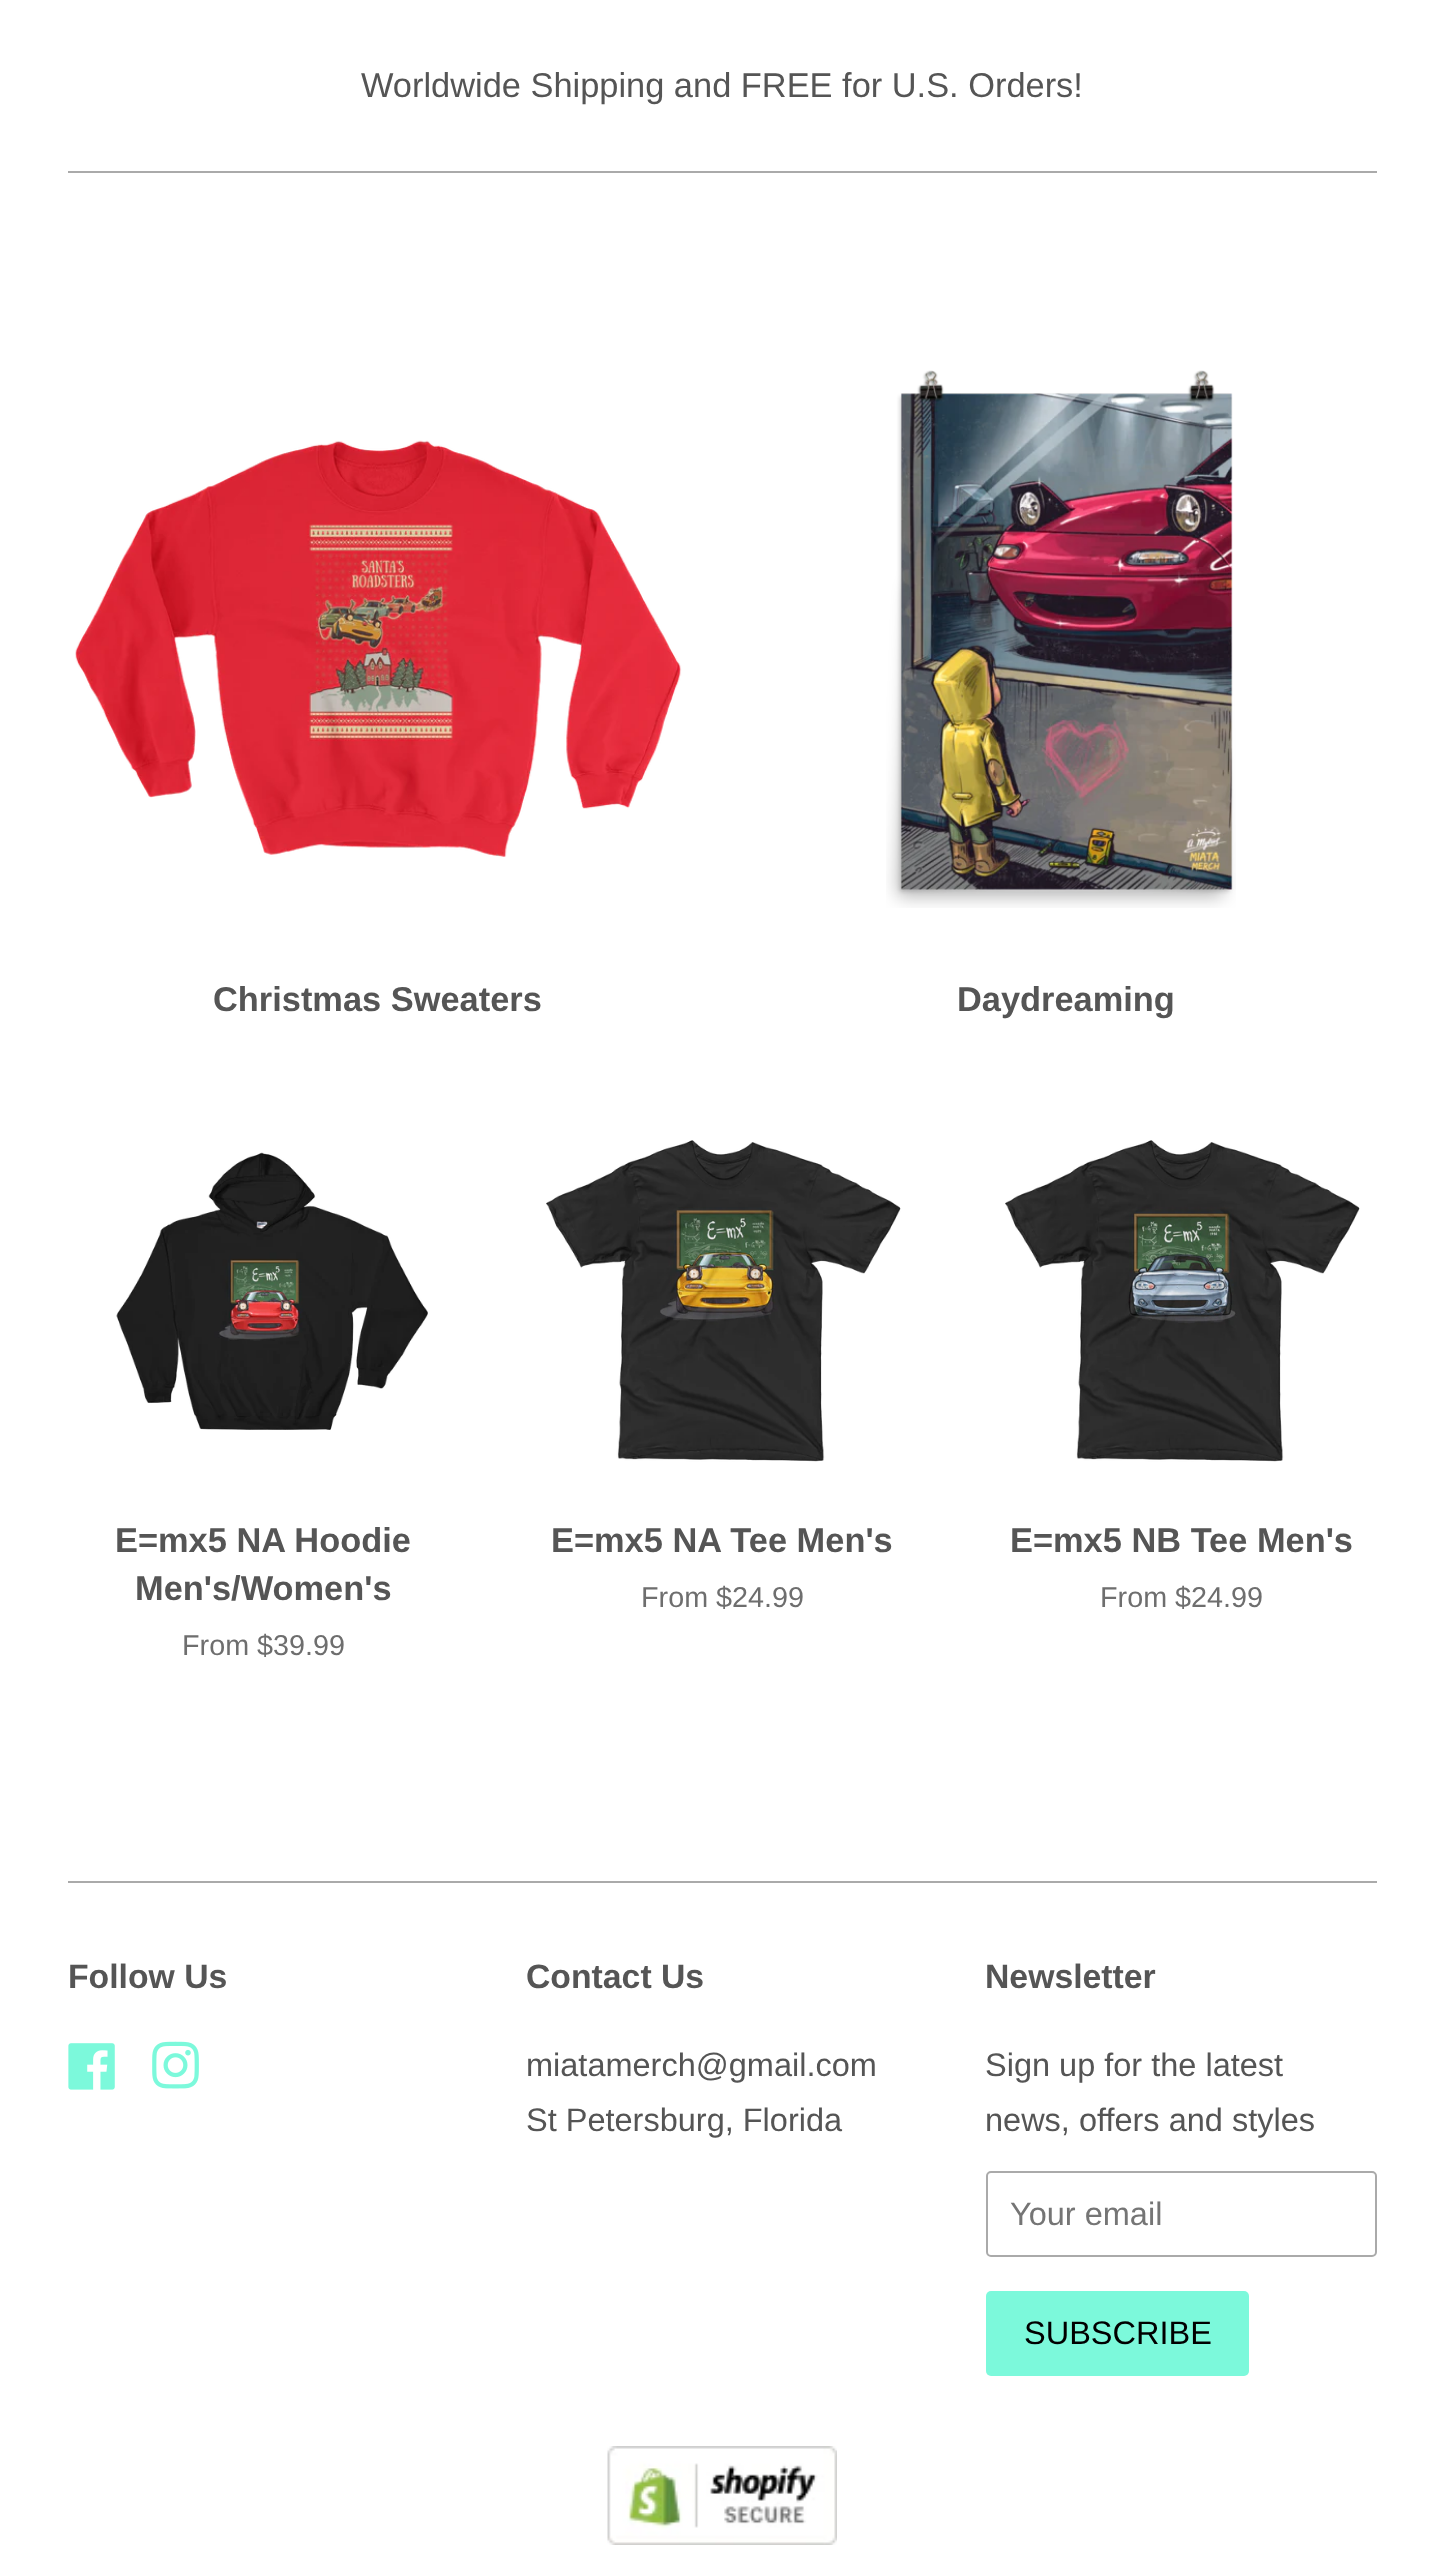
<svg xmlns="http://www.w3.org/2000/svg" xmlns:xlink="http://www.w3.org/1999/xlink" width="1443" height="2559" viewBox="0 0 1443 2559">
<style>
.cls-1{font:34.4px Liberation Sans;fill:#555555}
.cls-2{font:bold 34.4px Liberation Sans;fill:#555555}
.cls-3{font:28.75px Liberation Sans;fill:#6e6e6e}
.cls-4{font:bold 33.75px Liberation Sans;fill:#555555}
.cls-5{font:32.5px Liberation Sans;fill:#555555}
.cls-6{font:32.5px Liberation Sans;fill:#757575}
.cls-7{font:32.5px Liberation Sans;fill:#000000}
</style>
<rect width="100%" height="100%" fill="#ffffff"/>
<rect fill="#aaaaaa" x="68" y="171" width="1309" height="2"/>
<image xlink:href="image0.png" x="75" y="440" width="607" height="417"/>
<image xlink:href="image1.png" x="886" y="370" width="350" height="538"/>
<image xlink:href="image2.png" x="116" y="1152" width="312" height="278"/>
<image xlink:href="image3.png" x="546" y="1140" width="355" height="322"/>
<image xlink:href="image4.png" x="1005" y="1140" width="355" height="322"/>
<rect fill="#aaaaaa" x="68" y="1881" width="1309" height="2"/>
<image xlink:href="image5.png" x="68" y="2043" width="47" height="47"/>
<image xlink:href="image6.png" x="152" y="2041" width="47" height="48"/>
<rect fill="none" stroke="#aaaaaa" stroke-width="2" x="987" y="2172" width="389" height="84" rx="4"/>
<rect fill="#7cf9db" x="986" y="2291" width="263" height="85" rx="5"/>
<image xlink:href="image7.png" x="607" y="2446" width="230" height="99"/>
<text class="cls-1" x="361" y="97">Worldwide Shipping and FREE for U.S. Orders!</text>
<text class="cls-2" x="213" y="1011">Christmas Sweaters</text>
<text class="cls-2" x="957" y="1011">Daydreaming</text>
<text class="cls-2" x="115" y="1552">E=mx5 NA Hoodie</text>
<text class="cls-2" x="135" y="1600">Men's/Women's</text>
<text class="cls-3" x="182" y="1655">From $39.99</text>
<text class="cls-2" x="551" y="1552">E=mx5 NA Tee Men's</text>
<text class="cls-3" x="641" y="1607">From $24.99</text>
<text class="cls-2" x="1010" y="1552">E=mx5 NB Tee Men's</text>
<text class="cls-3" x="1100" y="1607">From $24.99</text>
<text class="cls-4" x="68" y="1988">Follow Us</text>
<text class="cls-4" x="526" y="1988">Contact Us</text>
<text class="cls-5"><tspan x="526" y="2076">miatamerch@gmail.com</tspan><tspan x="526" y="2131">St Petersburg, Florida</tspan></text>
<text class="cls-4" x="985" y="1988">Newsletter</text>
<text class="cls-5"><tspan x="985" y="2076">Sign up for the latest</tspan><tspan x="985" y="2131">news, offers and styles</tspan></text>
<text class="cls-6" x="1010" y="2225">Your email</text>
<text class="cls-7" x="1024" y="2344">SUBSCRIBE</text>
</svg>
